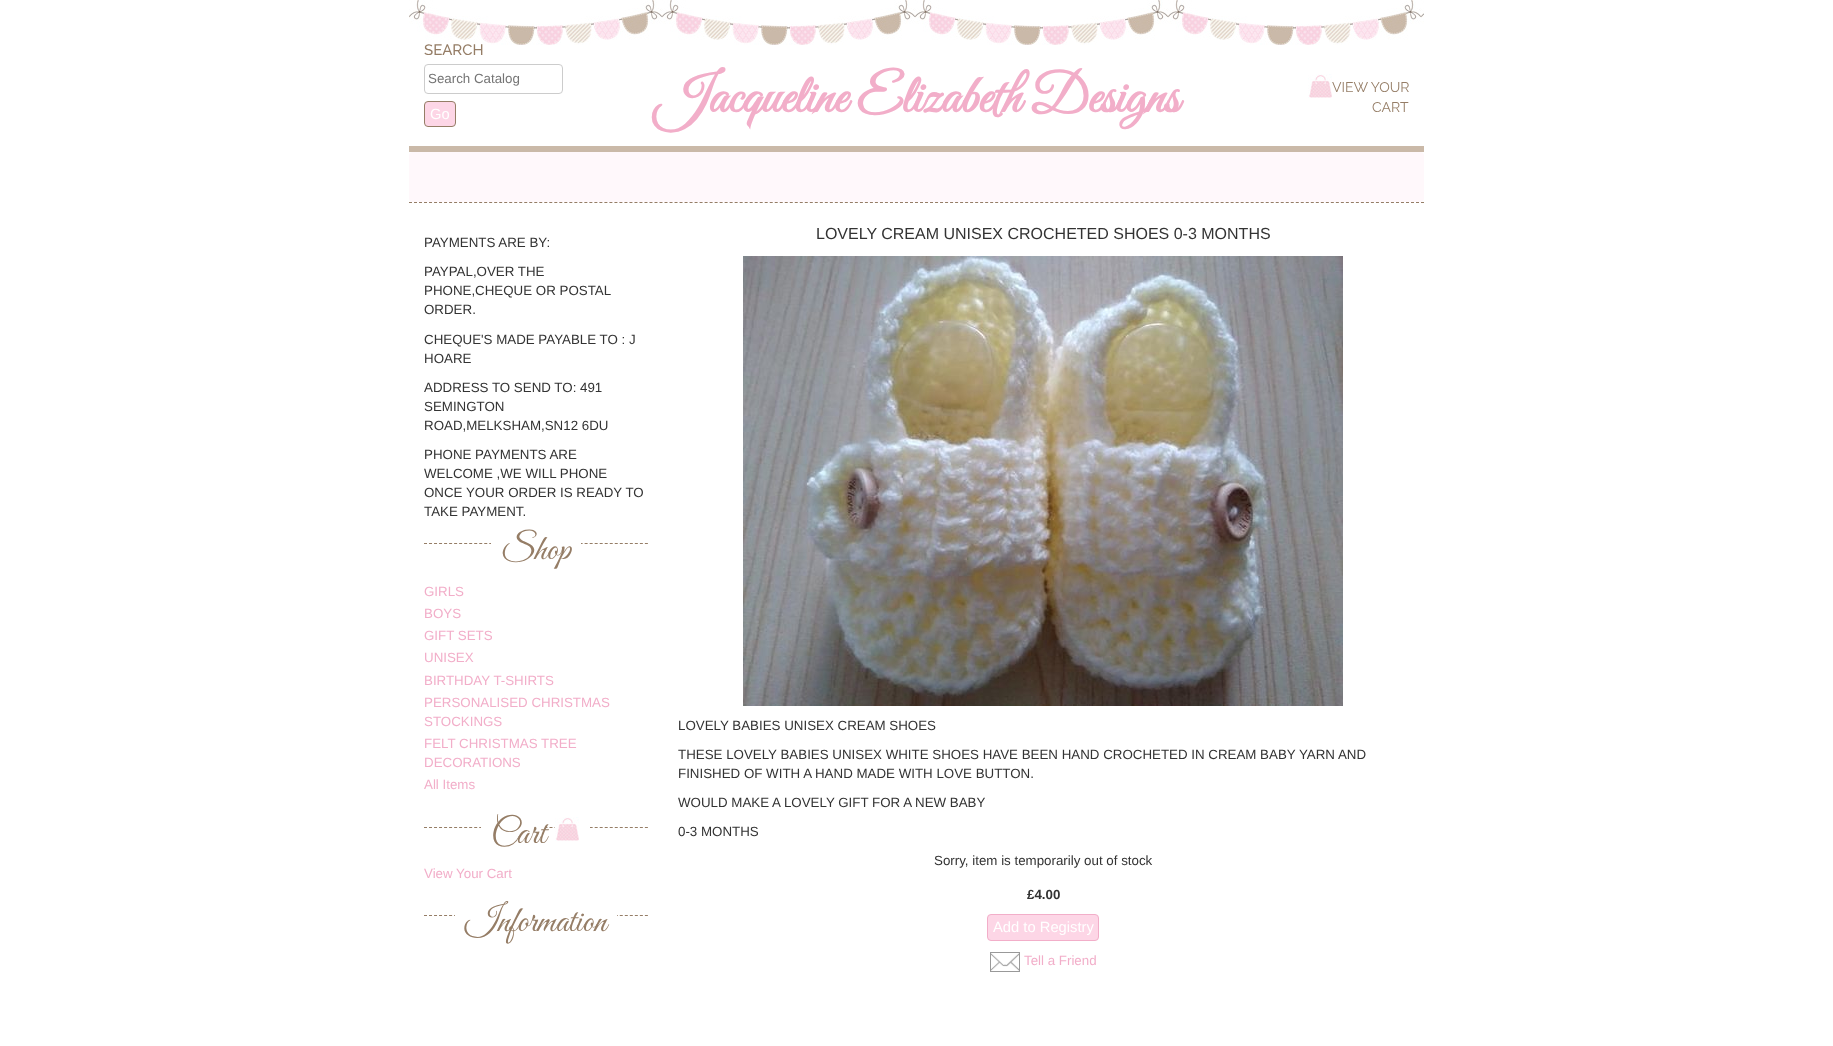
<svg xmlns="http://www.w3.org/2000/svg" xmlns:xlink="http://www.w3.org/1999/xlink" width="1833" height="1046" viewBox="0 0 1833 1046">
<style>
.cls-1{font:500 15px Raleway;fill:#957d66}
.cls-2{font:13.33px Liberation Sans;fill:#757575}
.cls-3{font:14.75px Liberation Sans;fill:#ffffff}
.cls-4{font:bold 54px Great Vibes;fill:#f2aec9}
.cls-5{font:14px Raleway;fill:#957d66}
.cls-6{font:13.33px Liberation Sans;fill:#333333}
.cls-7{font:36px Great Vibes;fill:#957d66}
.cls-8{font:13.33px Liberation Sans;fill:#f2aec9}
.cls-9{font:16px Liberation Sans;fill:#333333}
.cls-10{font:bold 13.33px Liberation Sans;fill:#333333}
</style>
<rect width="100%" height="100%" fill="#ffffff"/>
<image xlink:href="image0.png" x="409" y="0" width="1015" height="45"/>
<rect fill="#cab9a8" x="409" y="146" width="1015" height="6"/>
<rect fill="none" stroke="#cccccc" x="424.5" y="64.5" width="138" height="29" rx="3.5"/>
<rect fill="#fdd6e6" stroke="#957d66" x="424.5" y="101.5" width="31" height="25" rx="3.5"/>
<image xlink:href="image1.png" x="1308" y="74" width="24" height="24"/>
<path fill="none" stroke="#957d66" stroke-dasharray="3 2.01" d="M409 202.5H1424"/>
<rect fill="#fff8fb" x="409" y="152" width="1015" height="50" rx="4"/>
<path fill="none" stroke="#957d66" stroke-dasharray="3 2.02" d="M424 543.5H648"/>
<rect fill="#ffffff" x="491" y="543" width="90" height="1"/>
<path fill="none" stroke="#957d66" stroke-dasharray="3 2.02" d="M424 827.5H648"/>
<rect fill="#ffffff" x="481" y="827" width="65" height="1"/>
<rect fill="#ffffff" x="555" y="827" width="35" height="1"/>
<image xlink:href="image1.png" x="555" y="817" width="24" height="24"/>
<path fill="none" stroke="#957d66" stroke-dasharray="3 2.02" d="M424 915.5H648"/>
<rect fill="#ffffff" x="455" y="915" width="162" height="1"/>
<image xlink:href="image2.png" x="743" y="256" width="600" height="450"/>
<rect fill="#fdd6e6" stroke="#f2aec9" x="987.5" y="914.5" width="111" height="26" rx="3.5"/>
<image xlink:href="image3.png" x="990" y="952" width="30" height="20"/>
<text class="cls-1" x="424" y="55">SEARCH</text>
<text class="cls-2" x="428" y="83">Search Catalog</text>
<text class="cls-3" x="430" y="119">Go</text>
<text class="cls-4" x="655" y="112">Jacqueline Elizabeth Designs</text>
<text class="cls-5" x="1332" y="92">VIEW YOUR</text>
<text class="cls-5" x="1372" y="112">CART</text>
<text class="cls-6" x="424" y="247">PAYMENTS ARE BY:</text>
<text class="cls-6"><tspan x="424" y="276">PAYPAL,OVER THE</tspan><tspan x="424" y="295">PHONE,CHEQUE OR POSTAL</tspan><tspan x="424" y="314">ORDER.</tspan></text>
<text class="cls-6"><tspan x="424" y="344">CHEQUE'S MADE PAYABLE TO : J</tspan><tspan x="424" y="363">HOARE</tspan></text>
<text class="cls-6"><tspan x="424" y="392">ADDRESS TO SEND TO: 491</tspan><tspan x="424" y="411">SEMINGTON</tspan><tspan x="424" y="430">ROAD,MELKSHAM,SN12 6DU</tspan></text>
<text class="cls-6"><tspan x="424" y="459">PHONE PAYMENTS ARE</tspan><tspan x="424" y="478">WELCOME ,WE WILL PHONE</tspan><tspan x="424" y="497">ONCE YOUR ORDER IS READY TO</tspan><tspan x="424" y="516">TAKE PAYMENT.</tspan></text>
<text class="cls-7" x="501" y="559">Shop</text>
<text class="cls-8"><tspan x="424" y="596">GIRLS</tspan><tspan x="424" y="618">BOYS</tspan><tspan x="424" y="640">GIFT SETS</tspan><tspan x="424" y="662">UNISEX</tspan><tspan x="424" y="685">BIRTHDAY T-SHIRTS</tspan><tspan x="424" y="707">PERSONALISED CHRISTMAS</tspan><tspan x="424" y="726">STOCKINGS</tspan><tspan x="424" y="748">FELT CHRISTMAS TREE</tspan><tspan x="424" y="767">DECORATIONS</tspan><tspan x="424" y="789">All Items</tspan></text>
<text class="cls-7" x="491" y="843">Cart</text>
<text class="cls-8" x="424" y="878">View Your Cart</text>
<text class="cls-7" x="465" y="931">Information</text>
<text class="cls-9" x="816" y="239">LOVELY CREAM UNISEX CROCHETED SHOES 0-3 MONTHS</text>
<text class="cls-6" x="678" y="730">LOVELY BABIES UNISEX CREAM SHOES</text>
<text class="cls-6"><tspan x="678" y="759">THESE LOVELY BABIES UNISEX WHITE SHOES HAVE BEEN HAND CROCHETED IN CREAM BABY YARN AND</tspan><tspan x="678" y="778">FINISHED OF WITH A HAND MADE WITH LOVE BUTTON.</tspan></text>
<text class="cls-6" x="678" y="807">WOULD MAKE A LOVELY GIFT FOR A NEW BABY</text>
<text class="cls-6" x="678" y="836">0-3 MONTHS</text>
<text class="cls-6" x="934" y="865">Sorry, item is temporarily out of stock</text>
<text class="cls-10" x="1027" y="899">£4.00</text>
<text class="cls-3" x="993" y="932">Add to Registry</text>
<text class="cls-8" x="1024" y="965">Tell a Friend</text>
</svg>
